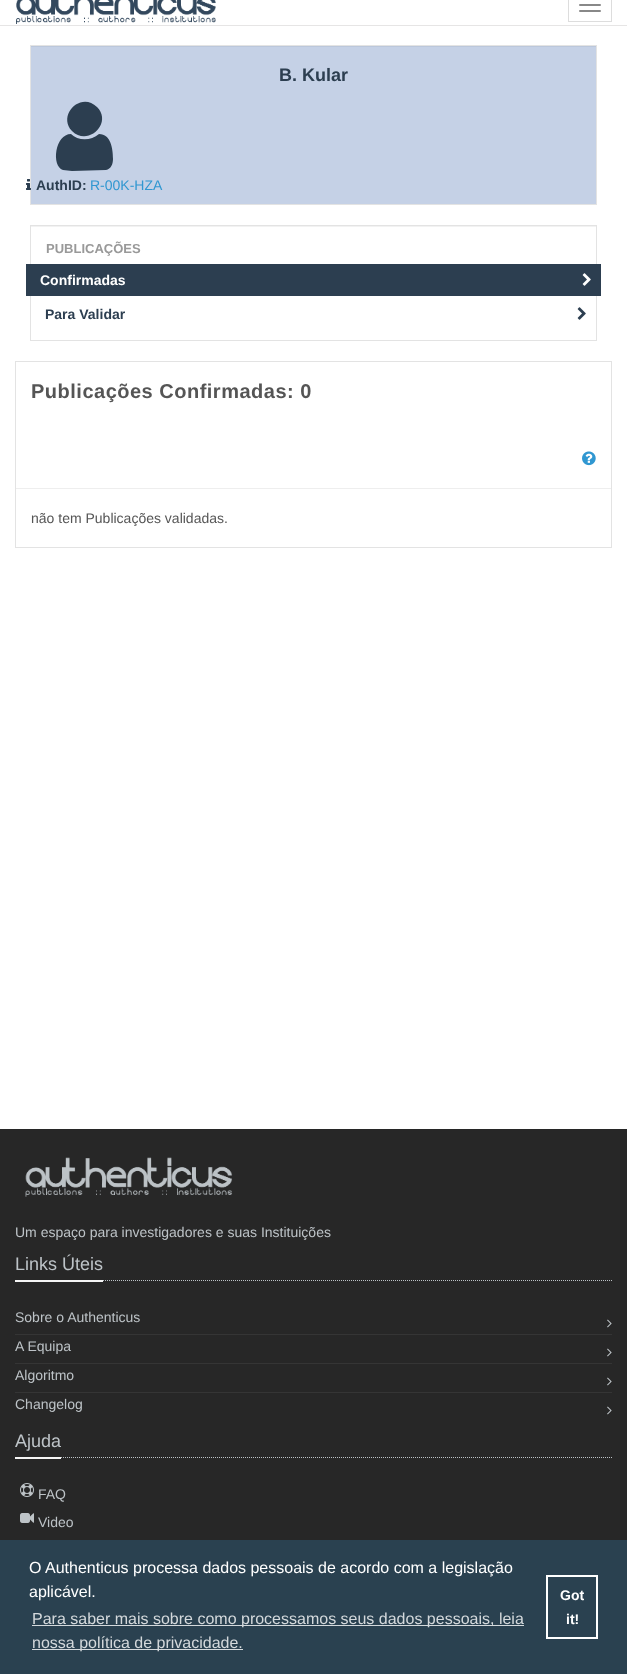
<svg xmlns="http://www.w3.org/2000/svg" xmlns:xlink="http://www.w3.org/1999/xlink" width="627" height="1674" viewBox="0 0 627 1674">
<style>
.cls-1{font:bold 18px Liberation Sans;fill:#2c3e50}
.cls-2{font:bold 14px Liberation Sans;fill:#2c3e50}
.cls-3{font:14px Liberation Sans;fill:#3097d1}
.cls-4{font:bold 13px Liberation Sans;fill:#999999}
.cls-5{font:bold 14px Liberation Sans;fill:#ffffff}
.cls-6{font:bold 20px Liberation Sans;letter-spacing:0.5px;fill:#555555}
.cls-7{font:14px Liberation Sans;fill:#555555}
.cls-8{font:14px Liberation Sans;fill:#bdc3c7}
.cls-9{font:18px Liberation Sans;fill:#bdc3c7}
.cls-10{font:16px Liberation Sans;fill:#ffffff}
.cls-11{font:16px Liberation Sans;fill:#d4d9dc}
</style>
<rect width="100%" height="100%" fill="#ffffff"/>
<rect fill="#e6e5e5" x="0" y="25" width="627" height="1"/>
<image xlink:href="image0.png" x="16" y="0" width="200" height="24"/>
<rect fill="none" stroke="#dddddd" x="568.5" y="-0.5" width="43" height="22"/>
<rect fill="#888888" x="579" y="4" width="22" height="2" rx="1"/>
<rect fill="#888888" x="579" y="10" width="22" height="2" rx="1"/>
<rect fill="#c5d1e6" x="31" y="47" width="565" height="157"/>
<rect fill="#bbc7db" x="31" y="46" width="565" height="1"/>
<rect fill="none" stroke="#e3e3e3" x="30.5" y="45.5" width="566" height="159"/>
<path fill="#2c3e50" d="M113 159C113 164 111 169 106 170L72 171L63 170C51 166 55 134 71 134C78 141 91 141 99 134C111 134 113 149 113 159ZM97 107C113 123 88 147 72 131C57 115 81 91 97 107Z"/>
<image xlink:href="image1.png" x="26" y="179" width="5" height="11"/>
<rect fill="#f2f2f2" x="31" y="226" width="565" height="1"/>
<rect fill="none" stroke="#e3e3e3" x="30.5" y="225.5" width="566" height="115"/>
<rect fill="#2c3e50" x="26" y="264" width="575" height="32"/>
<image xlink:href="image2.png" x="582" y="273" width="9" height="13"/>
<image xlink:href="image3.png" x="577" y="307" width="9" height="13"/>
<rect fill="none" stroke="#e3e3e3" x="15.5" y="361.5" width="596" height="186"/>
<rect fill="#eeeeee" x="16" y="488" width="595" height="1"/>
<image xlink:href="image4.png" x="582" y="451" width="14" height="15"/>
<rect fill="#272727" x="0" y="1129" width="627" height="411"/>
<image xlink:href="image5.png" x="25" y="1157" width="208" height="40"/>
<path fill="none" stroke="#bdc3c7" stroke-dasharray="1 1" d="M15 1280.5H612"/>
<rect fill="#f5f5f5" x="15" y="1280" width="88" height="2"/>
<image xlink:href="image6.png" x="607" y="1319" width="5" height="9"/>
<rect fill="#353535" x="15" y="1334" width="597" height="1"/>
<image xlink:href="image6.png" x="607" y="1348" width="5" height="9"/>
<rect fill="#353535" x="15" y="1363" width="597" height="1"/>
<image xlink:href="image6.png" x="607" y="1377" width="5" height="9"/>
<rect fill="#353535" x="15" y="1392" width="597" height="1"/>
<image xlink:href="image6.png" x="607" y="1406" width="5" height="9"/>
<path fill="none" stroke="#bdc3c7" stroke-dasharray="1 1" d="M15 1457.5H612"/>
<rect fill="#f5f5f5" x="15" y="1457" width="46" height="2"/>
<image xlink:href="image7.png" x="20" y="1483" width="14" height="14"/>
<image xlink:href="image8.png" x="20" y="1513" width="14" height="10"/>
<rect fill="#2a4150" x="0" y="1540" width="627" height="134"/>
<rect fill="#d4d9dc" x="32" y="1625" width="492" height="1"/>
<rect fill="#d4d9dc" x="32" y="1649" width="211" height="1"/>
<rect fill="none" stroke="#ffffff" stroke-width="2" x="547" y="1576" width="50" height="62"/>
<text class="cls-1" x="279" y="81">B. Kular</text>
<text class="cls-2" x="36" y="190">AuthID:</text>
<text class="cls-3" x="90" y="190">R-00K-HZA</text>
<text class="cls-4" x="46" y="253">PUBLICAÇÕES</text>
<text class="cls-5" x="40" y="285">Confirmadas</text>
<text class="cls-2" x="45" y="319">Para Validar</text>
<text class="cls-6" x="31" y="398">Publicações Confirmadas: 0</text>
<text class="cls-7" x="31" y="523">não tem Publicações validadas.</text>
<text class="cls-8" x="15" y="1237">Um espaço para investigadores e suas Instituições</text>
<text class="cls-9" x="15" y="1270">Links Úteis</text>
<text class="cls-8" x="15" y="1322">Sobre o Authenticus</text>
<text class="cls-8" x="15" y="1351">A Equipa</text>
<text class="cls-8" x="15" y="1380">Algoritmo</text>
<text class="cls-8" x="15" y="1409">Changelog</text>
<text class="cls-9" x="15" y="1447">Ajuda</text>
<text class="cls-8" x="38" y="1499">FAQ</text>
<text class="cls-8" x="38" y="1527">Video</text>
<text class="cls-10"><tspan x="29" y="1573">O Authenticus processa dados pessoais de acordo com a legislação</tspan><tspan x="29" y="1597">aplicável.</tspan></text>
<text class="cls-11"><tspan x="32" y="1624">Para saber mais sobre como processamos seus dados pessoais, leia</tspan><tspan x="32" y="1648">nossa política de privacidade.</tspan></text>
<text class="cls-5" x="560" y="1600">Got</text>
<text class="cls-5" x="566" y="1624">it!</text>
</svg>
